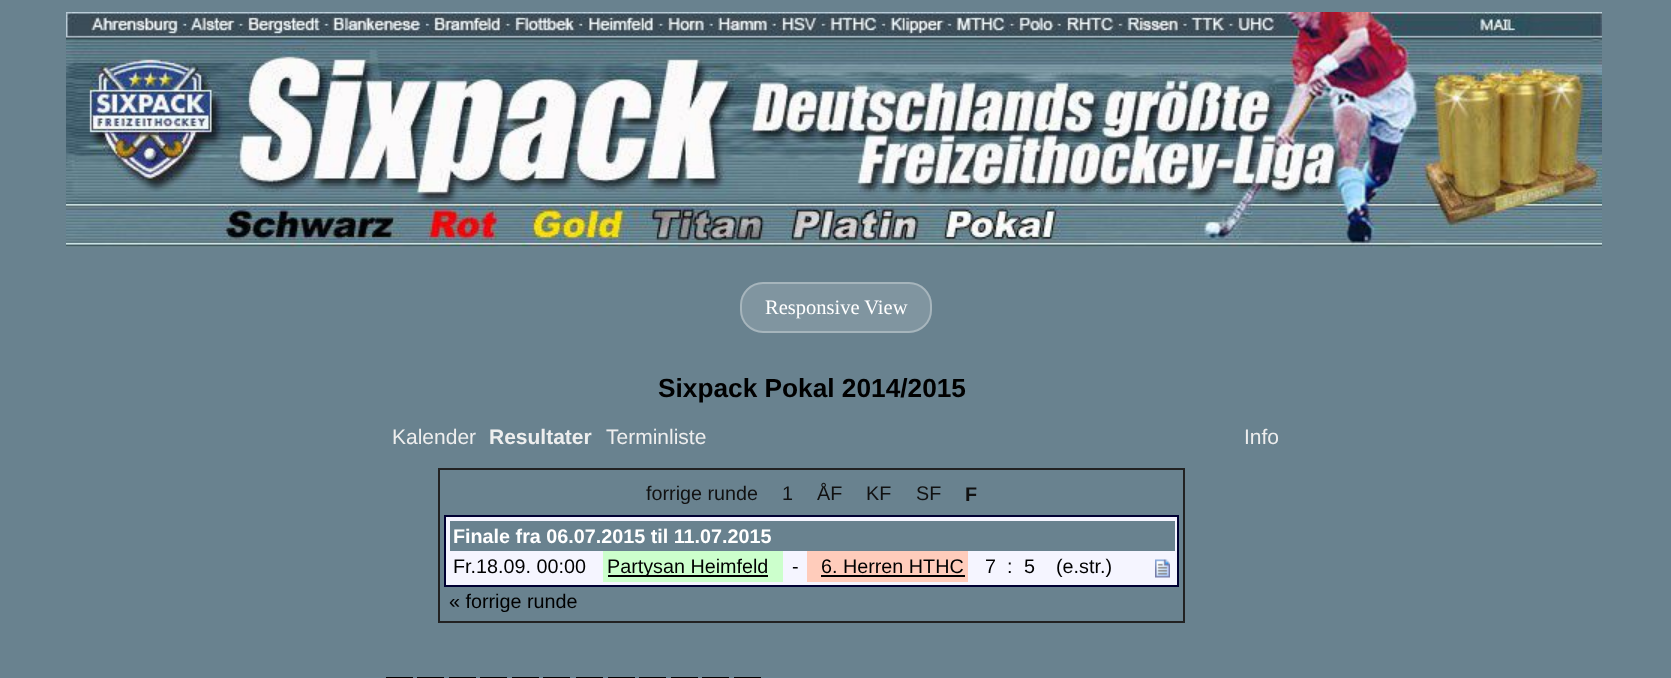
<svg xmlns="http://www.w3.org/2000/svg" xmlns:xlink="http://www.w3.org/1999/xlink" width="1671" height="678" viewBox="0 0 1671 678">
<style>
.cls-1{font:20.5px Liberation Serif;fill:#ffffff}
.cls-2{font:bold 26.25px Liberation Sans;fill:#000000}
.cls-3{font:21px Liberation Sans;fill:#eeeeee}
.cls-4{font:bold 21px Liberation Sans;fill:#eeeeee}
.cls-5{font:19.75px Liberation Sans;fill:#111111}
.cls-6{font:bold 19.75px Liberation Sans;fill:#111111}
.cls-7{font:bold 19.75px Liberation Sans;fill:#ffffff}
.cls-8{font:19.75px Liberation Sans;fill:#000000}
</style>
<rect width="100%" height="100%" fill="#69828f"/>
<image xlink:href="image0.png" x="66" y="12" width="1536" height="236"/>
<rect fill="#8095a0" x="740" y="282" width="192" height="51" rx="23"/>
<rect fill="none" stroke="#ffffff" stroke-opacity="0.3" stroke-width="2" x="741" y="283" width="190" height="49" rx="22"/>
<rect fill="none" stroke="#222222" stroke-width="2" x="439" y="469" width="745" height="153"/>
<rect fill="#f5f5ff" stroke="#000033" stroke-width="2" x="445" y="516" width="733" height="70"/>
<rect fill="#69828f" x="450" y="521" width="725" height="30"/>
<rect fill="#ccffcc" x="603" y="551" width="180" height="31"/>
<rect fill="#000000" x="608" y="575" width="160" height="2"/>
<rect fill="#ffccbb" x="807" y="551" width="161" height="31"/>
<rect fill="#000000" x="821" y="575" width="144" height="2"/>
<image xlink:href="image1.png" x="1155" y="559" width="15" height="19"/>
<rect fill="none" stroke="#000000" stroke-width="2" x="387" y="678" width="25" height="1"/>
<rect fill="none" stroke="#000000" stroke-width="2" x="418" y="678" width="25" height="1"/>
<rect fill="none" stroke="#000000" stroke-width="2" x="450" y="678" width="25" height="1"/>
<rect fill="none" stroke="#000000" stroke-width="2" x="481" y="678" width="25" height="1"/>
<rect fill="none" stroke="#000000" stroke-width="2" x="513" y="678" width="25" height="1"/>
<rect fill="none" stroke="#000000" stroke-width="2" x="544" y="678" width="25" height="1"/>
<rect fill="none" stroke="#000000" stroke-width="2" x="577" y="678" width="25" height="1"/>
<rect fill="none" stroke="#000000" stroke-width="2" x="609" y="678" width="25" height="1"/>
<rect fill="none" stroke="#000000" stroke-width="2" x="640" y="678" width="25" height="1"/>
<rect fill="none" stroke="#000000" stroke-width="2" x="672" y="678" width="25" height="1"/>
<rect fill="none" stroke="#000000" stroke-width="2" x="703" y="678" width="25" height="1"/>
<rect fill="none" stroke="#000000" stroke-width="2" x="735" y="678" width="25" height="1"/>
<text class="cls-1" x="765" y="314">Responsive View</text>
<text class="cls-2" x="658" y="397">Sixpack Pokal 2014/2015</text>
<text class="cls-3" x="392" y="444">Kalender</text>
<text class="cls-4" x="489" y="444">Resultater</text>
<text class="cls-3" x="606" y="444">Terminliste</text>
<text class="cls-3" x="1244" y="444">Info</text>
<text class="cls-5" x="646" y="500">forrige runde</text>
<text class="cls-5" x="782" y="500">1</text>
<text class="cls-5" x="817" y="500">ÅF</text>
<text class="cls-5" x="866" y="500">KF</text>
<text class="cls-5" x="916" y="500">SF</text>
<text class="cls-6" x="965" y="501">F</text>
<text class="cls-7" x="453" y="543">Finale fra 06.07.2015 til 11.07.2015</text>
<text class="cls-8" x="453" y="573">Fr.18.09. 00:00</text>
<text class="cls-8" x="607" y="573">Partysan Heimfeld</text>
<text class="cls-8" x="792" y="573">-</text>
<text class="cls-8" x="821" y="573">6. Herren HTHC</text>
<text class="cls-8" x="985" y="573">7</text>
<text class="cls-8" x="1007" y="573">:</text>
<text class="cls-8" x="1024" y="573">5</text>
<text class="cls-8" x="1056" y="573">(e.str.)</text>
<text class="cls-8" x="449" y="608">« forrige runde</text>
</svg>
